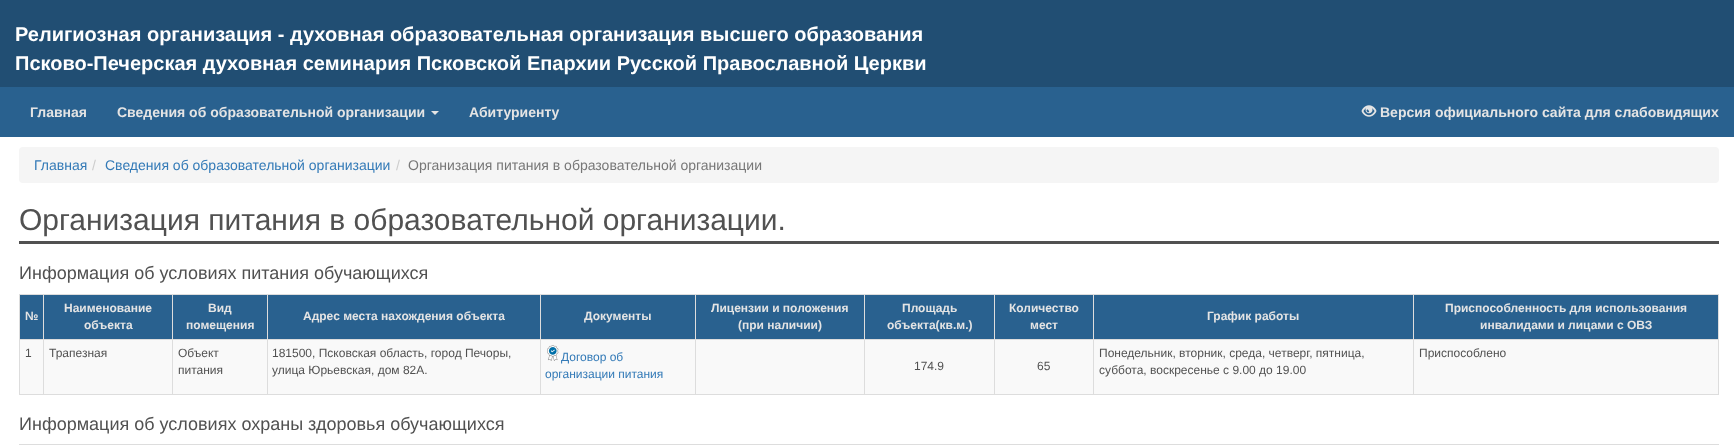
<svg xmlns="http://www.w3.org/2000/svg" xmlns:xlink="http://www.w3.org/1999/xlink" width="1734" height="445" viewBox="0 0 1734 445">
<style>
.cls-1{font:bold 20px Liberation Sans;fill:#ffffff}
.cls-2{font:bold 14px Liberation Sans;fill:#e4e4e4}
.cls-3{font:14px Liberation Sans;fill:#337ab7}
.cls-4{font:14px Liberation Sans;fill:#cccccc}
.cls-5{font:14px Liberation Sans;fill:#777777}
.cls-6{font:30px Liberation Sans;fill:#515151}
.cls-7{font:18px Liberation Sans;fill:#515151}
.cls-8{font:bold 12px Liberation Sans;fill:#e4e4e4}
.cls-9{font:12px Liberation Sans;fill:#515151}
.cls-10{font:12px Liberation Sans;fill:#337ab7}
</style>
<rect width="100%" height="100%" fill="#ffffff"/>
<rect fill="#214e73" x="0" y="0" width="1734" height="87"/>
<rect fill="#29618f" x="0" y="87" width="1734" height="50"/>
<path fill="#e4e4e4" d="M431 111H439L435 115Z"/>
<image xlink:href="image0.png" x="1361" y="105" width="16" height="12"/>
<rect fill="#f5f5f5" x="19" y="147" width="1700" height="36" rx="4"/>
<rect fill="#515151" x="19" y="241" width="1700" height="3"/>
<rect fill="#dddddd" x="19" y="294" width="1700" height="1"/>
<rect fill="#dddddd" x="1718" y="294" width="1" height="101"/>
<rect fill="#dddddd" x="19" y="394" width="1700" height="1"/>
<rect fill="#dddddd" x="19" y="294" width="1" height="101"/>
<rect fill="#29618f" x="20" y="295" width="23" height="44"/>
<rect fill="#29618f" x="44" y="295" width="128" height="44"/>
<rect fill="#dddddd" x="1413" y="339" width="306" height="1"/>
<rect fill="#f9f9f9" x="20" y="340" width="1698" height="54"/>
<rect fill="#dddddd" x="1413" y="339" width="1" height="56"/>
<rect fill="#dddddd" x="1093" y="339" width="321" height="1"/>
<rect fill="#dddddd" x="1093" y="339" width="1" height="56"/>
<rect fill="#dddddd" x="994" y="339" width="100" height="1"/>
<rect fill="#dddddd" x="994" y="339" width="1" height="56"/>
<rect fill="#dddddd" x="864" y="339" width="131" height="1"/>
<rect fill="#dddddd" x="864" y="339" width="1" height="56"/>
<rect fill="#dddddd" x="695" y="339" width="170" height="1"/>
<rect fill="#dddddd" x="695" y="339" width="1" height="56"/>
<rect fill="#dddddd" x="540" y="339" width="156" height="1"/>
<rect fill="#dddddd" x="540" y="339" width="1" height="56"/>
<rect fill="#dddddd" x="267" y="339" width="274" height="1"/>
<rect fill="#dddddd" x="267" y="339" width="1" height="56"/>
<rect fill="#dddddd" x="172" y="339" width="96" height="1"/>
<rect fill="#dddddd" x="172" y="339" width="1" height="56"/>
<rect fill="#dddddd" x="43" y="339" width="130" height="1"/>
<rect fill="#dddddd" x="43" y="339" width="1" height="56"/>
<rect fill="#dddddd" x="19" y="339" width="25" height="1"/>
<rect fill="#dddddd" x="43" y="294" width="1" height="46"/>
<rect fill="#29618f" x="173" y="295" width="94" height="44"/>
<rect fill="#dddddd" x="172" y="294" width="1" height="46"/>
<rect fill="#29618f" x="268" y="295" width="272" height="44"/>
<rect fill="#dddddd" x="267" y="294" width="1" height="46"/>
<rect fill="#29618f" x="541" y="295" width="154" height="44"/>
<rect fill="#dddddd" x="540" y="294" width="1" height="46"/>
<rect fill="#29618f" x="696" y="295" width="168" height="44"/>
<rect fill="#dddddd" x="695" y="294" width="1" height="46"/>
<rect fill="#29618f" x="865" y="295" width="129" height="44"/>
<rect fill="#dddddd" x="864" y="294" width="1" height="46"/>
<rect fill="#29618f" x="995" y="295" width="98" height="44"/>
<rect fill="#dddddd" x="994" y="294" width="1" height="46"/>
<rect fill="#29618f" x="1094" y="295" width="319" height="44"/>
<rect fill="#dddddd" x="1093" y="294" width="1" height="46"/>
<rect fill="#29618f" x="1414" y="295" width="304" height="44"/>
<rect fill="#dddddd" x="1413" y="294" width="1" height="46"/>
<image xlink:href="image1.png" x="547" y="345" width="12" height="16"/>
<rect fill="#dddddd" x="19" y="444" width="1700" height="1"/>
<text class="cls-1"><tspan x="15" y="41">Религиозная организация - духовная образовательная организация высшего образования</tspan><tspan x="15" y="70">Псково-Печерская духовная семинария Псковской Епархии Русской Православной Церкви</tspan></text>
<text class="cls-2" x="30" y="117">Главная</text>
<text class="cls-2" x="117" y="117">Сведения об образовательной организации</text>
<text class="cls-2" x="469" y="117">Абитуриенту</text>
<text class="cls-2" x="1380" y="117">Версия официального сайта для слабовидящих</text>
<text class="cls-3" x="34" y="170">Главная</text>
<text class="cls-4" x="92" y="170">/</text>
<text class="cls-3" x="105" y="170">Сведения об образовательной организации</text>
<text class="cls-4" x="396" y="170">/</text>
<text class="cls-5" x="408" y="170">Организация питания в образовательной организации</text>
<text class="cls-6" x="19" y="230">Организация питания в образовательной организации.</text>
<text class="cls-7" x="19" y="279">Информация об условиях питания обучающихся</text>
<text class="cls-8" x="25" y="320">№</text>
<text class="cls-8" x="64" y="312">Наименование</text>
<text class="cls-8" x="84" y="329">объекта</text>
<text class="cls-8" x="208" y="312">Вид</text>
<text class="cls-8" x="186" y="329">помещения</text>
<text class="cls-8" x="303" y="320">Адрес места нахождения объекта</text>
<text class="cls-8" x="584" y="320">Документы</text>
<text class="cls-8" x="711" y="312">Лицензии и положения</text>
<text class="cls-8" x="738" y="329">(при наличии)</text>
<text class="cls-8" x="902" y="312">Площадь</text>
<text class="cls-8" x="887" y="329">объекта(кв.м.)</text>
<text class="cls-8" x="1009" y="312">Количество</text>
<text class="cls-8" x="1030" y="329">мест</text>
<text class="cls-8" x="1207" y="320">График работы</text>
<text class="cls-8" x="1445" y="312">Приспособленность для использования</text>
<text class="cls-8" x="1480" y="329">инвалидами и лицами с ОВЗ</text>
<text class="cls-9" x="25" y="357">1</text>
<text class="cls-9" x="49" y="357">Трапезная</text>
<text class="cls-9"><tspan x="178" y="357">Объект</tspan><tspan x="178" y="374">питания</tspan></text>
<text class="cls-9"><tspan x="272" y="357">181500, Псковская область, город Печоры,</tspan><tspan x="272" y="374">улица Юрьевская, дом 82А.</tspan></text>
<text class="cls-10" x="561" y="361">Договор об</text>
<text class="cls-10" x="545" y="378">организации питания</text>
<text class="cls-9" x="914" y="370">174.9</text>
<text class="cls-9" x="1037" y="370">65</text>
<text class="cls-9"><tspan x="1099" y="357">Понедельник, вторник, среда, четверг, пятница,</tspan><tspan x="1099" y="374">суббота, воскресенье с 9.00 до 19.00</tspan></text>
<text class="cls-9" x="1419" y="357">Приспособлено</text>
<text class="cls-7" x="19" y="430">Информация об условиях охраны здоровья обучающихся</text>
</svg>
